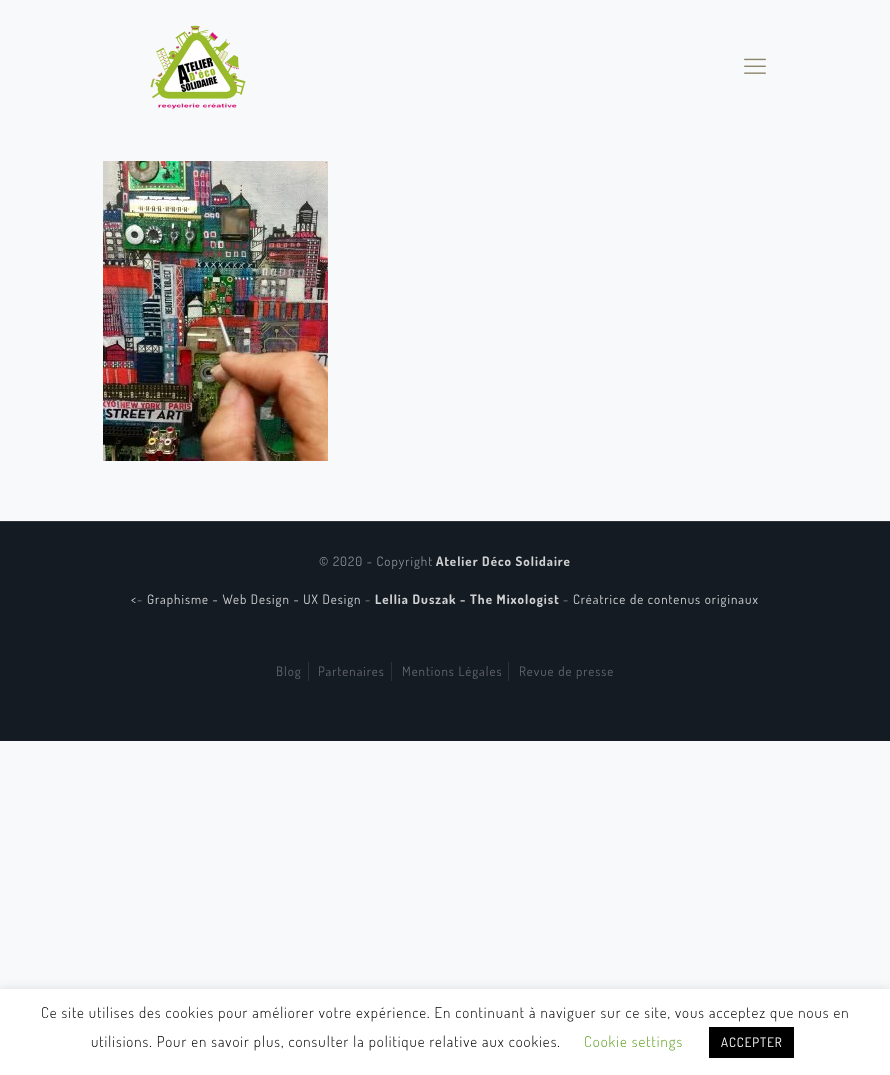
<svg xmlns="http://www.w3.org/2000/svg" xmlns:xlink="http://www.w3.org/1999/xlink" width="890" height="1075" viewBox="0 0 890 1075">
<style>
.cls-1{font:13px Dosis;letter-spacing:1px;fill:#8a8d91}
.cls-2{font:bold 13px Dosis;letter-spacing:1px;fill:#d0d1d3}
.cls-3{font:13px Dosis;letter-spacing:1px;fill:#d0d1d3}
.cls-4{font:13px Dosis;letter-spacing:1px;fill:#65666c}
.cls-5{font:300 15px Dosis;letter-spacing:1px;fill:#000000}
.cls-6{font:300 15px Dosis;letter-spacing:1px;fill:#62a329}
.cls-7{font:13px Dosis;letter-spacing:1px;fill:#ffffff}
</style>
<rect width="100%" height="100%" fill="#f7f9fa"/>
<image xlink:href="image0.png" x="150" y="25" width="96" height="84"/>
<image xlink:href="image1.png" x="744" y="58" width="22" height="16"/>
<image xlink:href="image2.png" x="103" y="161" width="225" height="300"/>
<rect fill="#141b22" x="0" y="522" width="890" height="219"/>
<rect fill="#2c3238" x="0" y="521" width="890" height="1"/>
<rect fill="#2c3238" x="308" y="662" width="1" height="19"/>
<rect fill="#2c3238" x="391" y="662" width="1" height="19"/>
<rect fill="#2c3238" x="508" y="662" width="1" height="19"/>
<rect fill="#acabab" fill-opacity="0.3" filter="blur(5px)" x="0" y="988" width="890" height="86"/>
<rect fill="#ffffff" x="0" y="989" width="890" height="86"/>
<rect fill="#000000" x="709" y="1027" width="85" height="31"/>
<text class="cls-1" x="319" y="566">© 2020 - Copyright</text>
<text class="cls-2" x="436" y="566">Atelier Déco Solidaire</text>
<text class="cls-3" x="131" y="604">&lt;</text>
<text class="cls-1" x="137" y="604">-</text>
<text class="cls-3" x="147" y="604">Graphisme - Web Design - UX Design</text>
<text class="cls-1" x="365" y="604">-</text>
<text class="cls-2" x="375" y="604">Lellia Duszak - The Mixologist</text>
<text class="cls-1" x="563" y="604">-</text>
<text class="cls-3" x="573" y="604">Créatrice de contenus originaux</text>
<text class="cls-4" x="276" y="676">Blog</text>
<text class="cls-4" x="318" y="676">Partenaires</text>
<text class="cls-4" x="402" y="676">Mentions Légales</text>
<text class="cls-4" x="519" y="676">Revue de presse</text>
<text class="cls-5" x="41" y="1018">Ce site utilises des cookies pour améliorer votre expérience. En continuant à naviguer sur ce site, vous acceptez que nous en</text>
<text class="cls-5" x="91" y="1047">utilisions. Pour en savoir plus, consulter la politique relative aux cookies.</text>
<text class="cls-6" x="584" y="1047">Cookie settings</text>
<text class="cls-7" x="721" y="1047">ACCEPTER</text>
</svg>
